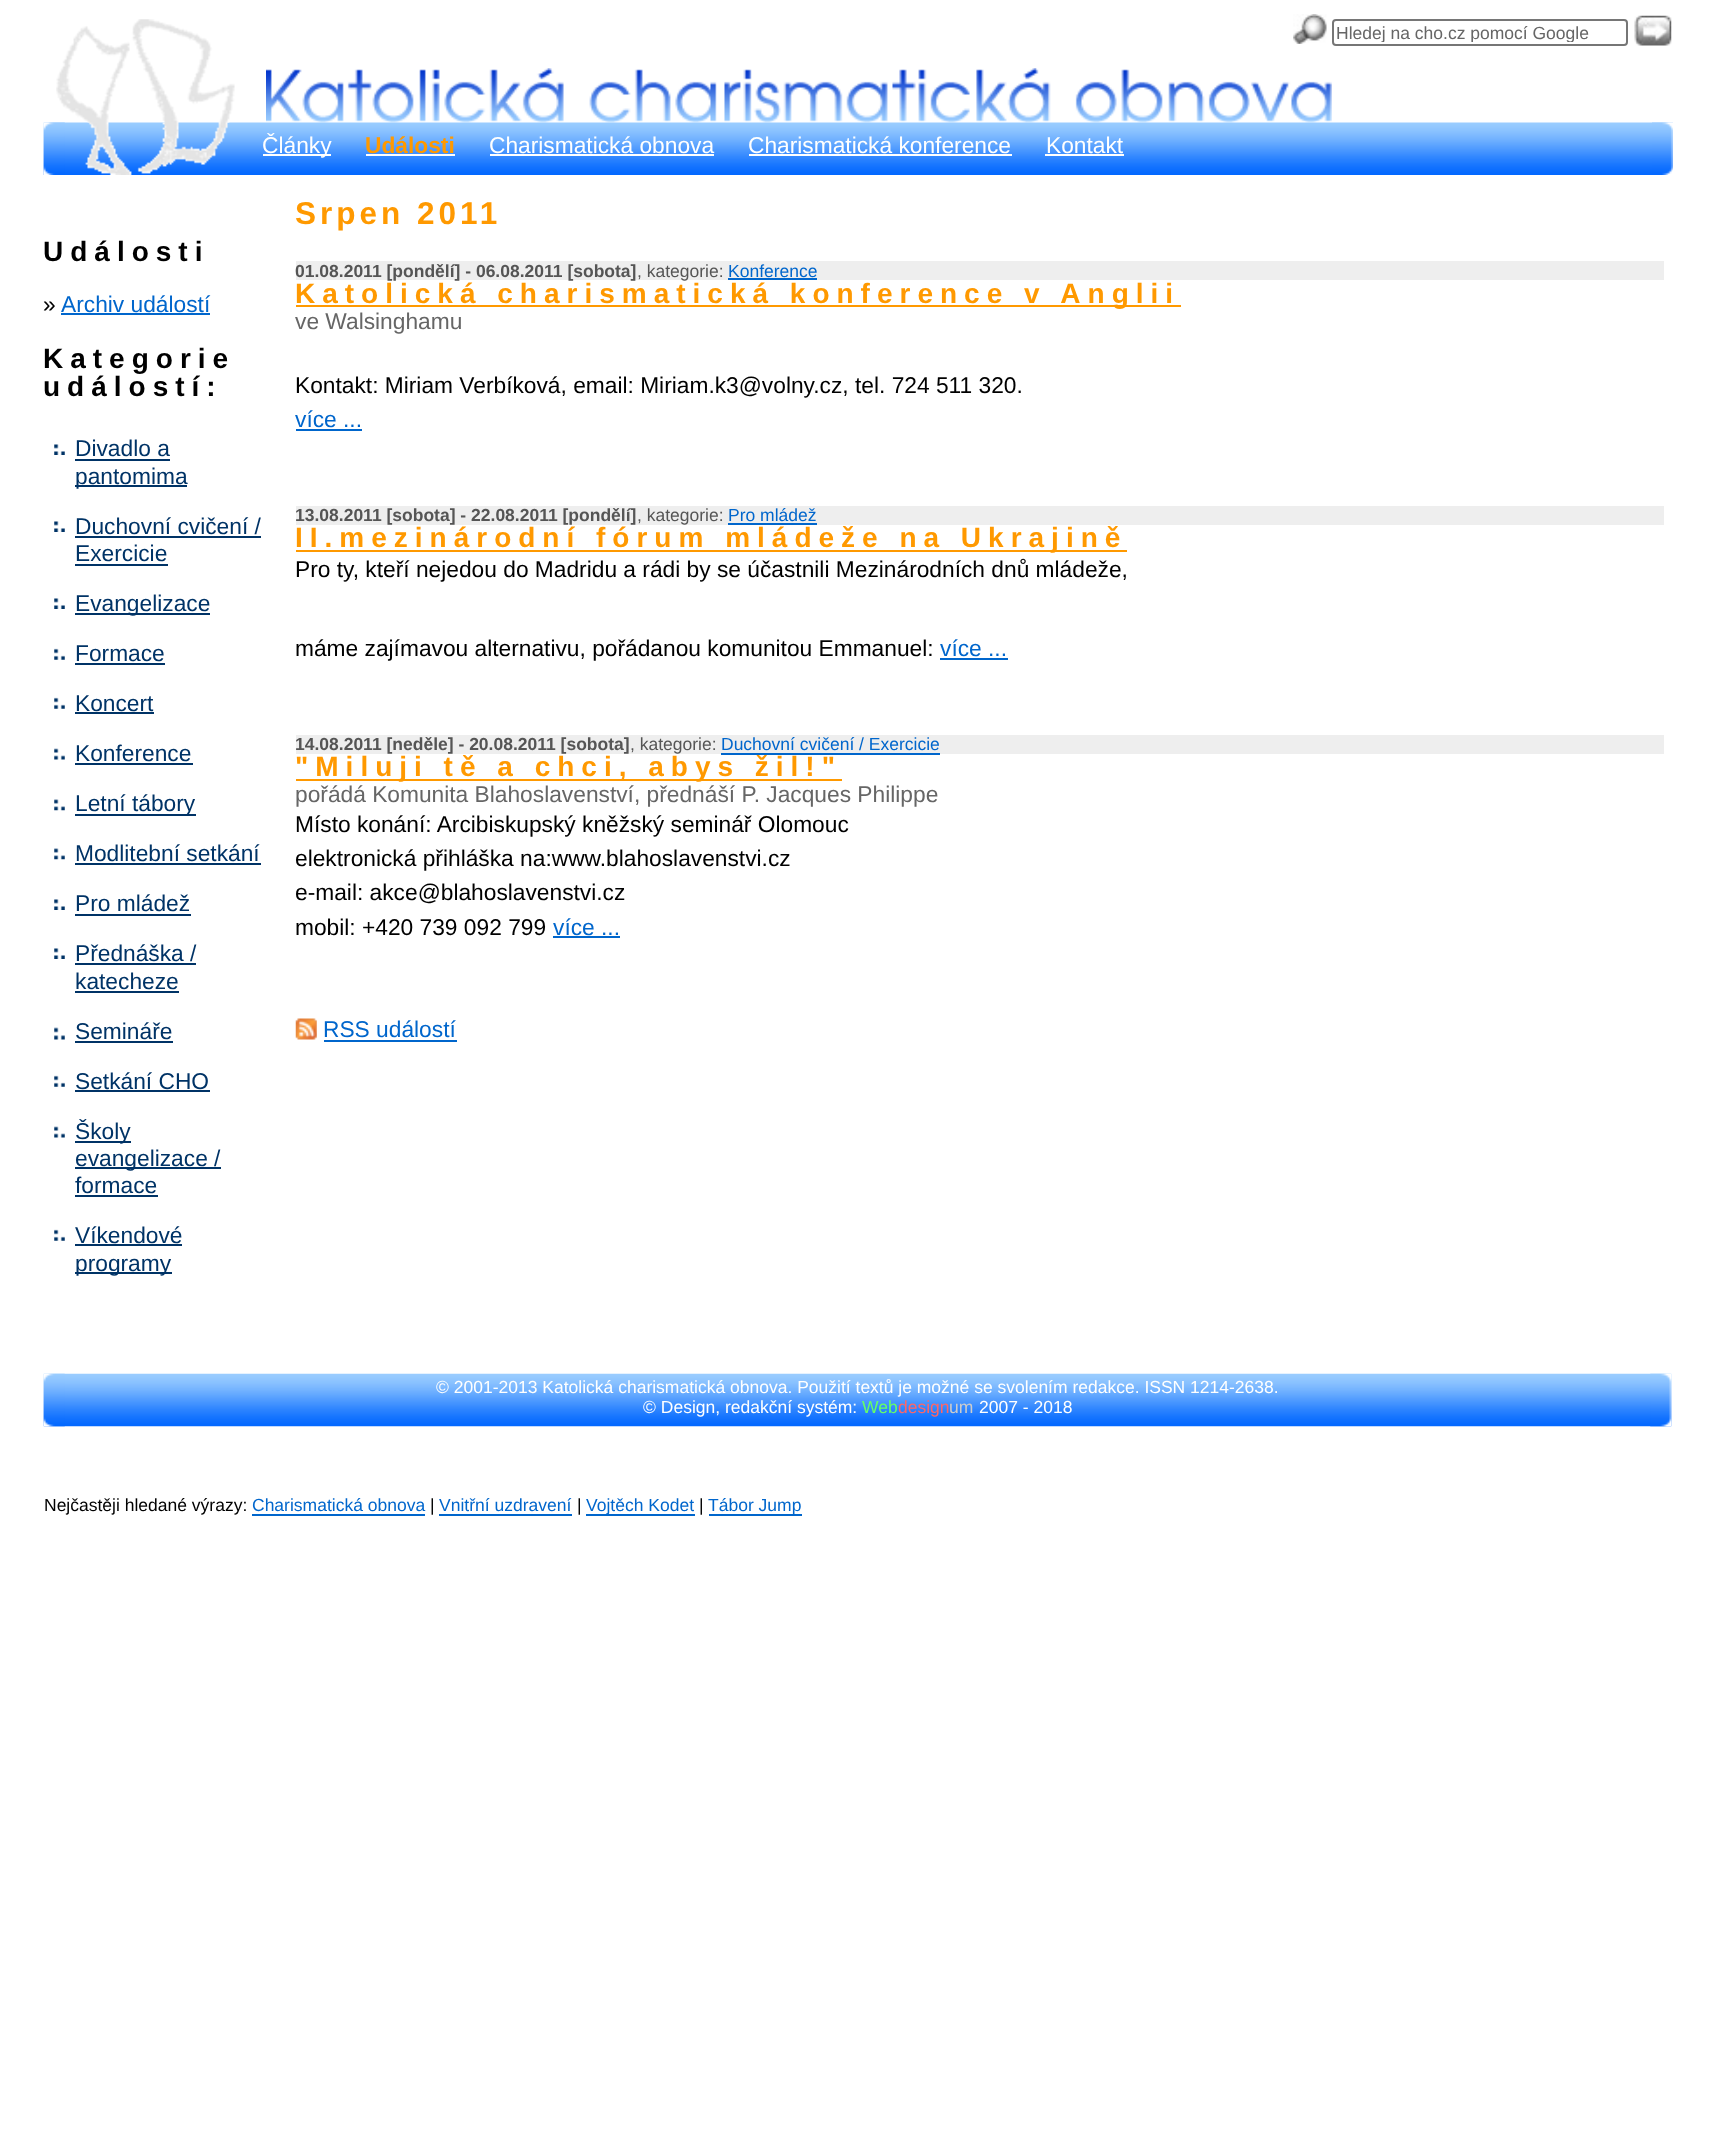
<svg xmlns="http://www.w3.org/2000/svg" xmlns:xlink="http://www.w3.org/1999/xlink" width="1715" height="2147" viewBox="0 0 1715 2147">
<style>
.cls-1{font:17.5px Liberation Sans;fill:#666666}
.cls-2{font:22.75px Liberation Sans;fill:#ffffff}
.cls-3{font:bold 22.75px Liberation Sans;fill:#ff9900}
.cls-4{font:bold 28px Liberation Sans;letter-spacing:7px;fill:#000000}
.cls-5{font:22.75px Liberation Sans;fill:#000000}
.cls-6{font:22.75px Liberation Sans;fill:#0066cc}
.cls-7{font:22.75px Liberation Sans;fill:#003366}
.cls-8{font:bold 31.5px Liberation Sans;letter-spacing:4px;fill:#ff9900}
.cls-9{font:bold 17.5px Liberation Sans;fill:#555555}
.cls-10{font:17.5px Liberation Sans;fill:#555555}
.cls-11{font:17.5px Liberation Sans;fill:#0066cc}
.cls-12{font:bold 28px Liberation Sans;letter-spacing:7px;fill:#ff9900}
.cls-13{font:22.75px Liberation Sans;fill:#666666}
.cls-14{font:17.5px Liberation Sans;fill:#ffffff}
.cls-15{font:17.5px Liberation Sans;fill:#66ff66}
.cls-16{font:17.5px Liberation Sans;fill:#ff6666}
.cls-17{font:17.5px Liberation Sans;fill:#cccccc}
.cls-18{font:17.5px Liberation Sans;fill:#000000}
</style>
<defs>
<clipPath id="clip1"><rect x="1335" y="23" width="289" height="19"/></clipPath>
</defs>
<rect width="100%" height="100%" fill="#ffffff"/>
<image xlink:href="image3.png" x="266" y="68" width="1066" height="55"/>
<image xlink:href="image4.png" x="43" y="122" width="1630" height="53"/>
<image xlink:href="image5.png" x="43" y="122" width="22" height="53"/>
<image xlink:href="image0.png" x="56" y="19" width="179" height="156"/>
<image xlink:href="image1.png" x="1293" y="14" width="34" height="30"/>
<rect fill="none" stroke="#767676" stroke-width="2" x="1333" y="20" width="294" height="25" rx="3"/>
<image xlink:href="image2.png" x="1634" y="15" width="38" height="31"/>
<rect fill="#ffffff" x="263" y="154" width="68" height="2"/>
<rect fill="#ffffff" x="366" y="154" width="89" height="2"/>
<rect fill="#ffffff" x="490" y="154" width="224" height="2"/>
<rect fill="#ffffff" x="749" y="154" width="263" height="2"/>
<rect fill="#ffffff" x="1045" y="154" width="79" height="2"/>
<image xlink:href="image6.png" x="1652" y="122" width="21" height="53"/>
<rect fill="#0066cc" x="61" y="313" width="149" height="2"/>
<image xlink:href="image7.png" x="54" y="444" width="11" height="11"/>
<rect fill="#003366" x="75" y="459" width="95" height="2"/>
<rect fill="#003366" x="75" y="485" width="112" height="2"/>
<image xlink:href="image7.png" x="54" y="521" width="11" height="11"/>
<rect fill="#003366" x="75" y="536" width="186" height="2"/>
<rect fill="#003366" x="75" y="564" width="93" height="2"/>
<image xlink:href="image7.png" x="54" y="598" width="11" height="11"/>
<rect fill="#003366" x="75" y="613" width="135" height="2"/>
<image xlink:href="image8.png" x="54" y="648" width="11" height="12"/>
<rect fill="#003366" x="75" y="663" width="90" height="2"/>
<image xlink:href="image8.png" x="54" y="697" width="11" height="12"/>
<rect fill="#003366" x="75" y="712" width="79" height="2"/>
<image xlink:href="image9.png" x="54" y="748" width="11" height="12"/>
<rect fill="#003366" x="75" y="763" width="118" height="2"/>
<image xlink:href="image10.png" x="54" y="799" width="11" height="12"/>
<rect fill="#003366" x="75" y="814" width="121" height="2"/>
<image xlink:href="image10.png" x="54" y="848" width="11" height="12"/>
<rect fill="#003366" x="75" y="863" width="186" height="2"/>
<image xlink:href="image7.png" x="54" y="899" width="11" height="11"/>
<rect fill="#003366" x="75" y="914" width="116" height="2"/>
<image xlink:href="image7.png" x="54" y="948" width="11" height="11"/>
<rect fill="#003366" x="75" y="963" width="121" height="2"/>
<rect fill="#003366" x="75" y="991" width="104" height="2"/>
<image xlink:href="image11.png" x="54" y="1027" width="11" height="13"/>
<rect fill="#003366" x="75" y="1041" width="98" height="2"/>
<image xlink:href="image8.png" x="54" y="1075" width="11" height="12"/>
<rect fill="#003366" x="75" y="1090" width="135" height="2"/>
<image xlink:href="image9.png" x="54" y="1126" width="11" height="12"/>
<rect fill="#003366" x="75" y="1141" width="56" height="2"/>
<rect fill="#003366" x="75" y="1167" width="146" height="2"/>
<rect fill="#003366" x="75" y="1195" width="83" height="2"/>
<image xlink:href="image8.png" x="54" y="1229" width="11" height="12"/>
<rect fill="#003366" x="75" y="1244" width="107" height="2"/>
<rect fill="#003366" x="75" y="1272" width="97" height="2"/>
<rect fill="#eeeeee" x="296" y="261" width="1368" height="19"/>
<rect fill="#0066cc" x="728" y="278" width="89" height="2"/>
<rect fill="#ff9900" x="296" y="305" width="885" height="2"/>
<rect fill="#0066cc" x="296" y="429" width="66" height="2"/>
<rect fill="#eeeeee" x="296" y="506" width="1368" height="19"/>
<rect fill="#0066cc" x="728" y="523" width="89" height="2"/>
<rect fill="#ff9900" x="296" y="550" width="831" height="2"/>
<rect fill="#0066cc" x="940" y="658" width="68" height="2"/>
<rect fill="#eeeeee" x="296" y="735" width="1368" height="19"/>
<rect fill="#0066cc" x="721" y="753" width="219" height="2"/>
<rect fill="#ff9900" x="296" y="779" width="546" height="2"/>
<rect fill="#0066cc" x="553" y="936" width="67" height="2"/>
<image xlink:href="image12.png" x="295" y="1018" width="22" height="22"/>
<rect fill="#0066cc" x="324" y="1040" width="133" height="2"/>
<image xlink:href="image13.png" x="43" y="1373" width="1629" height="54"/>
<image xlink:href="image14.png" x="43" y="1373" width="22" height="54"/>
<image xlink:href="image15.png" x="1650" y="1373" width="22" height="54"/>
<rect fill="#0066cc" x="252" y="1514" width="173" height="2"/>
<rect fill="#0066cc" x="439" y="1514" width="133" height="2"/>
<rect fill="#0066cc" x="586" y="1514" width="109" height="2"/>
<rect fill="#0066cc" x="709" y="1514" width="93" height="2"/>
<g clip-path="url(#clip1)">
<text class="cls-1" x="1336" y="39">Hledej na cho.cz pomocí Google</text>
</g>
<text class="cls-2" x="262" y="153">Články</text>
<text class="cls-3" x="365" y="153">Události</text>
<text class="cls-2" x="489" y="153">Charismatická obnova</text>
<text class="cls-2" x="748" y="153">Charismatická konference</text>
<text class="cls-2" x="1046" y="153">Kontakt</text>
<text class="cls-4" x="43" y="261">Události</text>
<text class="cls-5" x="43" y="312">»</text>
<text class="cls-6" x="61" y="312">Archiv událostí</text>
<text class="cls-4"><tspan x="43" y="368">Kategorie</tspan><tspan x="43" y="396">událostí:</tspan></text>
<text class="cls-7"><tspan x="75" y="456">Divadlo a</tspan><tspan x="75" y="484">pantomima</tspan></text>
<text class="cls-7"><tspan x="75" y="534">Duchovní cvičení /</tspan><tspan x="75" y="561">Exercicie</tspan></text>
<text class="cls-7" x="75" y="611">Evangelizace</text>
<text class="cls-7" x="75" y="661">Formace</text>
<text class="cls-7" x="75" y="711">Koncert</text>
<text class="cls-7" x="75" y="761">Konference</text>
<text class="cls-7" x="75" y="811">Letní tábory</text>
<text class="cls-7" x="75" y="861">Modlitební setkání</text>
<text class="cls-7" x="75" y="911">Pro mládež</text>
<text class="cls-7"><tspan x="75" y="961">Přednáška /</tspan><tspan x="75" y="989">katecheze</tspan></text>
<text class="cls-7" x="75" y="1039">Semináře</text>
<text class="cls-7" x="75" y="1089">Setkání CHO</text>
<text class="cls-7"><tspan x="75" y="1139">Školy</tspan><tspan x="75" y="1166">evangelizace /</tspan><tspan x="75" y="1193">formace</tspan></text>
<text class="cls-7"><tspan x="75" y="1243">Víkendové</tspan><tspan x="75" y="1271">programy</tspan></text>
<text class="cls-8" x="295" y="224">Srpen 2011</text>
<text class="cls-9" x="295" y="277">01.08.2011 [pondělí] - 06.08.2011 [sobota]</text>
<text class="cls-10" x="637" y="277">, kategorie:</text>
<text class="cls-11" x="728" y="277">Konference</text>
<text class="cls-12" x="295" y="303">Katolická charismatická konference v Anglii</text>
<text class="cls-13" x="295" y="329">ve Walsinghamu</text>
<text class="cls-5" x="295" y="393">Kontakt: Miriam Verbíková, email: Miriam.k3@volny.cz, tel. 724 511 320.</text>
<text class="cls-6" x="295" y="427">více ...</text>
<text class="cls-9" x="295" y="521">13.08.2011 [sobota] - 22.08.2011 [pondělí]</text>
<text class="cls-10" x="637" y="521">, kategorie:</text>
<text class="cls-11" x="728" y="521">Pro mládež</text>
<text class="cls-12" x="295" y="547">II.mezinárodní fórum mládeže na Ukrajině</text>
<text class="cls-5" x="295" y="577">Pro ty, kteří nejedou do Madridu a rádi by se účastnili Mezinárodních dnů mládeže,</text>
<text class="cls-5" x="295" y="656">máme zajímavou alternativu, pořádanou komunitou Emmanuel:</text>
<text class="cls-6" x="940" y="656">více ...</text>
<text class="cls-9" x="295" y="750">14.08.2011 [neděle] - 20.08.2011 [sobota]</text>
<text class="cls-10" x="630" y="750">, kategorie:</text>
<text class="cls-11" x="721" y="750">Duchovní cvičení / Exercicie</text>
<text class="cls-12" x="295" y="776">"Miluji tě a chci, abys žil!"</text>
<text class="cls-13" x="295" y="802">pořádá Komunita Blahoslavenství, přednáší P. Jacques Philippe</text>
<text class="cls-5"><tspan x="295" y="832">Místo konání: Arcibiskupský kněžský seminář Olomouc</tspan><tspan x="295" y="866">elektronická přihláška na:www.blahoslavenstvi.cz</tspan><tspan x="295" y="900">e-mail: akce@blahoslavenstvi.cz</tspan><tspan x="295" y="935">mobil: +420 739 092 799</tspan></text>
<text class="cls-6" x="553" y="935">více ...</text>
<text class="cls-6" x="323" y="1037">RSS událostí</text>
<text class="cls-14" x="436" y="1393">© 2001-2013 Katolická charismatická obnova. Použití textů je možné se svolením redakce. ISSN 1214-2638.</text>
<text class="cls-14" x="643" y="1413">© Design, redakční systém:</text>
<text class="cls-15" x="862" y="1413">Web</text>
<text class="cls-16" x="898" y="1413">design</text>
<text class="cls-17" x="949" y="1413">um</text>
<text class="cls-14" x="979" y="1413">2007 - 2018</text>
<text class="cls-18" x="44" y="1511">Nejčastěji hledané výrazy:</text>
<text class="cls-11" x="252" y="1511">Charismatická obnova</text>
<text class="cls-18" x="430" y="1511">|</text>
<text class="cls-11" x="439" y="1511">Vnitřní uzdravení</text>
<text class="cls-18" x="577" y="1511">|</text>
<text class="cls-11" x="586" y="1511">Vojtěch Kodet</text>
<text class="cls-18" x="699" y="1511">|</text>
<text class="cls-11" x="708" y="1511">Tábor Jump</text>
</svg>
